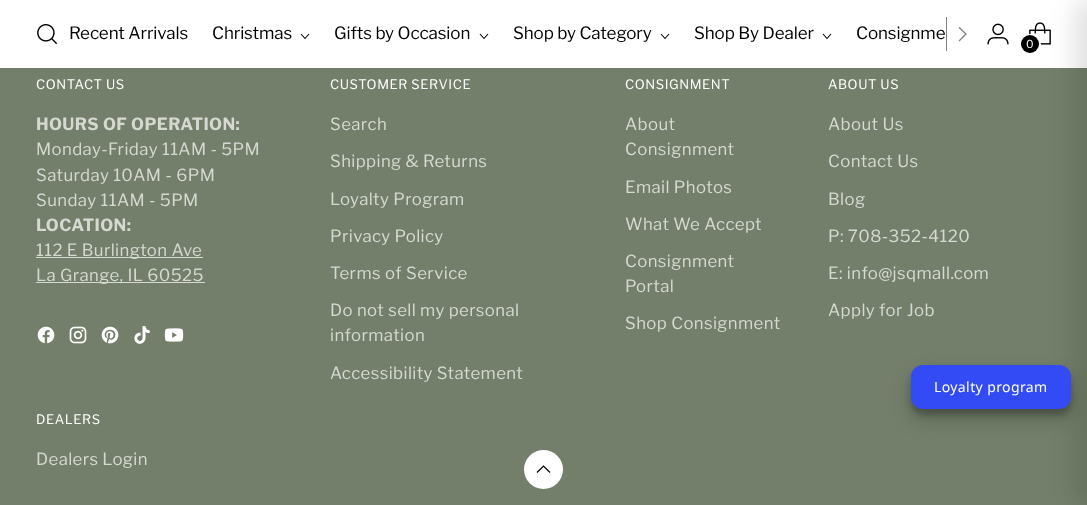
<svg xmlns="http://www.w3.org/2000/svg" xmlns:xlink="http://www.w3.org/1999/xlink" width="1087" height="505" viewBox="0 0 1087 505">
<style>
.cls-1{font:17px Libre Franklin;letter-spacing:-0.1px;fill:#000000}
.cls-2{font:11px Libre Franklin;letter-spacing:0.4px;fill:#ffffff}
.cls-3{font:13px Libre Franklin;letter-spacing:0.6px;fill:#ffffff}
.cls-4{font:bold 16.75px Libre Franklin;letter-spacing:0.4px;fill:#d5d9d2}
.cls-5{font:16.75px Libre Franklin;letter-spacing:0.4px;fill:#d5d9d2}
.cls-6{font:14px Noto Sans;letter-spacing:0.4px;fill:#ffffff}
</style>
<rect width="100%" height="100%" fill="#737f6a"/>
<rect fill="#ffffff" x="0" y="0" width="1087" height="68"/>
<image xlink:href="image0.png" x="37" y="24" width="21" height="21"/>
<path fill="none" stroke="#000000" stroke-width="1.1" d="M301 34L305 38.5L309 34"/>
<path fill="none" stroke="#000000" stroke-width="1.1" d="M480 34L484 38.5L488 34"/>
<path fill="none" stroke="#000000" stroke-width="1.1" d="M661 34L665 38.5L669 34"/>
<path fill="none" stroke="#000000" stroke-width="1.1" d="M823 34L827 38.5L831 34"/>
<rect fill="#808080" x="946" y="17" width="1" height="34"/>
<path fill="none" stroke="#808080" stroke-width="1.3" d="M959 41L966 34L959 27.5"/>
<image xlink:href="image1.png" x="987" y="23" width="22" height="22"/>
<image xlink:href="image2.png" x="1029" y="22" width="22" height="23"/>
<circle fill="none" stroke="#ffffff" stroke-width="2" cx="1030.5" cy="44.5" r="9.5"/>
<circle fill="#000000" cx="1030" cy="44" r="9"/>
<rect fill="#d5d9d2" x="36" y="257" width="167" height="1"/>
<rect fill="#d5d9d2" x="36" y="282" width="169" height="1"/>
<image xlink:href="image3.png" x="37" y="326" width="18" height="18"/>
<image xlink:href="image4.png" x="69" y="326" width="18" height="18"/>
<image xlink:href="image5.png" x="101" y="326" width="18" height="18"/>
<image xlink:href="image6.png" x="134" y="326" width="16" height="18"/>
<image xlink:href="image7.png" x="164" y="328" width="20" height="14"/>
<circle fill="#ffffff" cx="543.5" cy="469.5" r="19.5"/>
<path fill="none" stroke="#000000" stroke-width="1.2" d="M550 472.5L543.5 466L537 472.5"/>
<rect fill="#000000" fill-opacity="0.23" filter="blur(3px)" x="911" y="371" width="160" height="44" rx="12"/>
<rect fill="#000000" fill-opacity="0.19" filter="blur(10px)" x="911" y="375" width="160" height="44" rx="12"/>
<rect fill="#000000" fill-opacity="0.12" filter="blur(12px)" x="1075" y="0" width="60" height="505" rx="12"/>
<rect fill="#334bf4" x="911" y="365" width="160" height="44" rx="12"/>
<text class="cls-1" x="69" y="39">Recent Arrivals</text>
<text class="cls-1" x="212" y="39">Christmas</text>
<text class="cls-1" x="334" y="39">Gifts by Occasion</text>
<text class="cls-1" x="513" y="39">Shop by Category</text>
<text class="cls-1" x="694" y="39">Shop By Dealer</text>
<text class="cls-1" x="856" y="39">Consignme</text>
<text class="cls-2" x="1026" y="48">0</text>
<text class="cls-3" x="36" y="89">CONTACT US</text>
<text class="cls-4" x="36" y="130">HOURS OF OPERATION:</text>
<text class="cls-5"><tspan x="36" y="155">Monday-Friday 11AM - 5PM</tspan><tspan x="36" y="181">Saturday 10AM - 6PM</tspan><tspan x="36" y="206">Sunday 11AM - 5PM</tspan></text>
<text class="cls-4" x="36" y="231">LOCATION:</text>
<text class="cls-5"><tspan x="36" y="256">112 E Burlington Ave</tspan><tspan x="36" y="281">La Grange, IL 60525</tspan></text>
<text class="cls-3" x="330" y="89">CUSTOMER SERVICE</text>
<text class="cls-5" x="330" y="130">Search</text>
<text class="cls-5" x="330" y="167">Shipping &amp; Returns</text>
<text class="cls-5" x="330" y="205">Loyalty Program</text>
<text class="cls-5" x="330" y="242">Privacy Policy</text>
<text class="cls-5" x="330" y="279">Terms of Service</text>
<text class="cls-5"><tspan x="330" y="316">Do not sell my personal</tspan><tspan x="330" y="341">information</tspan></text>
<text class="cls-5" x="330" y="379">Accessibility Statement</text>
<text class="cls-3" x="625" y="89">CONSIGNMENT</text>
<text class="cls-5"><tspan x="625" y="130">About</tspan><tspan x="625" y="155">Consignment</tspan></text>
<text class="cls-5" x="625" y="193">Email Photos</text>
<text class="cls-5" x="625" y="230">What We Accept</text>
<text class="cls-5"><tspan x="625" y="267">Consignment</tspan><tspan x="625" y="292">Portal</tspan></text>
<text class="cls-5" x="625" y="329">Shop Consignment</text>
<text class="cls-3" x="828" y="89">ABOUT US</text>
<text class="cls-5" x="828" y="130">About Us</text>
<text class="cls-5" x="828" y="167">Contact Us</text>
<text class="cls-5" x="828" y="205">Blog</text>
<text class="cls-5" x="828" y="242">P: 708-352-4120</text>
<text class="cls-5" x="828" y="279">E: info@jsqmall.com</text>
<text class="cls-5" x="828" y="316">Apply for Job</text>
<text class="cls-3" x="36" y="424">DEALERS</text>
<text class="cls-5" x="36" y="465">Dealers Login</text>
<text class="cls-6" x="934" y="392">Loyalty program</text>
</svg>
